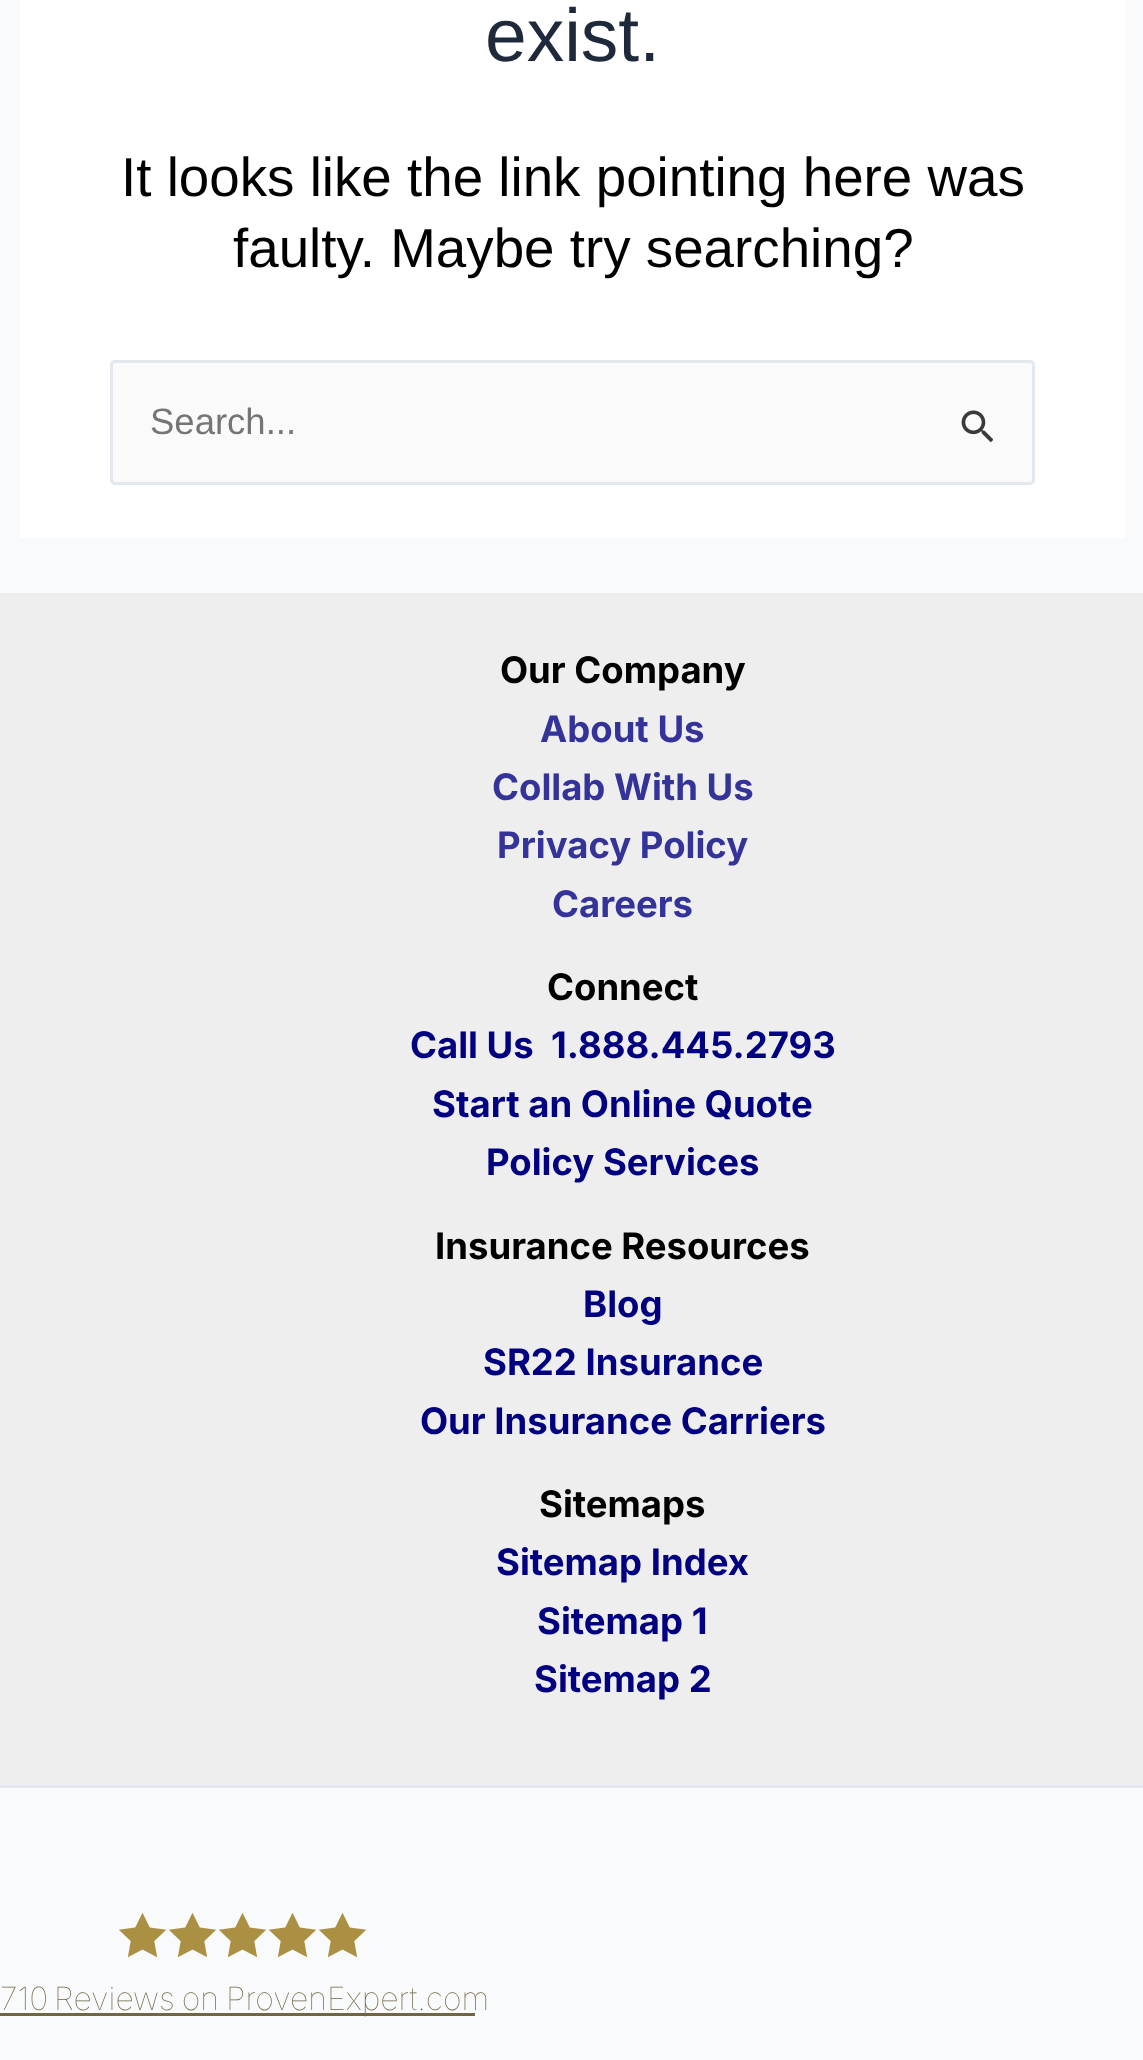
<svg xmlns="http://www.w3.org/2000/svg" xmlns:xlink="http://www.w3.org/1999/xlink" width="1143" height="2060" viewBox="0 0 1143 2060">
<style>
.cls-1{font:75px Liberation Sans;fill:#1e293b}
.cls-2{font:54.75px Liberation Sans;fill:#000000}
.cls-3{font:36.5px Liberation Sans;fill:#757575}
.cls-4{font:bold 36.5px Inter;fill:#000000}
.cls-5{font:bold 36.5px Inter;fill:#333399}
.cls-6{font:bold 36.5px Inter;fill:#000080}
.cls-7{font:100 32px Inter;fill:#726542}
</style>
<rect width="100%" height="100%" fill="#f9fafb"/>
<rect fill="#ffffff" x="20" y="0" width="1105" height="538"/>
<rect fill="#fafafa" stroke="#e2e8f0" stroke-width="3" x="111.5" y="361.5" width="922" height="122" rx="3.5"/>
<image xlink:href="image0.png" x="961" y="410" width="32" height="33"/>
<rect fill="#eeeeee" x="0" y="593" width="1143" height="1192"/>
<rect fill="#e2e8f0" x="0" y="1785" width="1143" height="3"/>
<image xlink:href="image1.png" x="118" y="1912" width="49" height="46"/>
<image xlink:href="image1.png" x="168" y="1912" width="49" height="46"/>
<image xlink:href="image1.png" x="218" y="1912" width="49" height="46"/>
<image xlink:href="image1.png" x="268" y="1912" width="49" height="46"/>
<image xlink:href="image1.png" x="318" y="1912" width="49" height="46"/>
<rect fill="#726542" x="0" y="2013" width="475" height="3"/>
<text class="cls-1" x="485" y="61">exist.</text>
<text class="cls-2" x="121" y="196">It looks like the link pointing here was</text>
<text class="cls-2" x="233" y="267">faulty. Maybe try searching?</text>
<text class="cls-3" x="150" y="434">Search...</text>
<text class="cls-4" x="500" y="683">Our Company</text>
<text class="cls-5" x="540" y="742">About Us</text>
<text class="cls-5" x="492" y="800">Collab With Us</text>
<text class="cls-5" x="497" y="858">Privacy Policy</text>
<text class="cls-5" x="552" y="917">Careers</text>
<text class="cls-4" x="547" y="1000">Connect</text>
<text class="cls-6" xml:space="preserve" x="410" y="1058">Call Us  1.888.445.2793</text>
<text class="cls-6" x="432" y="1117">Start an Online Quote</text>
<text class="cls-6" x="486" y="1175">Policy Services</text>
<text class="cls-4" x="435" y="1259">Insurance Resources</text>
<text class="cls-6" x="583" y="1317">Blog</text>
<text class="cls-6" x="483" y="1375">SR22 Insurance</text>
<text class="cls-6" x="420" y="1434">Our Insurance Carriers</text>
<text class="cls-4" x="539" y="1517">Sitemaps</text>
<text class="cls-6" x="496" y="1575">Sitemap Index</text>
<text class="cls-6" x="537" y="1634">Sitemap 1</text>
<text class="cls-6" x="534" y="1692">Sitemap 2</text>
<text class="cls-7" x="0" y="2010">710</text>
<text class="cls-7" x="54" y="2010" word-spacing="-2">Reviews on ProvenExpert.com</text>
</svg>
